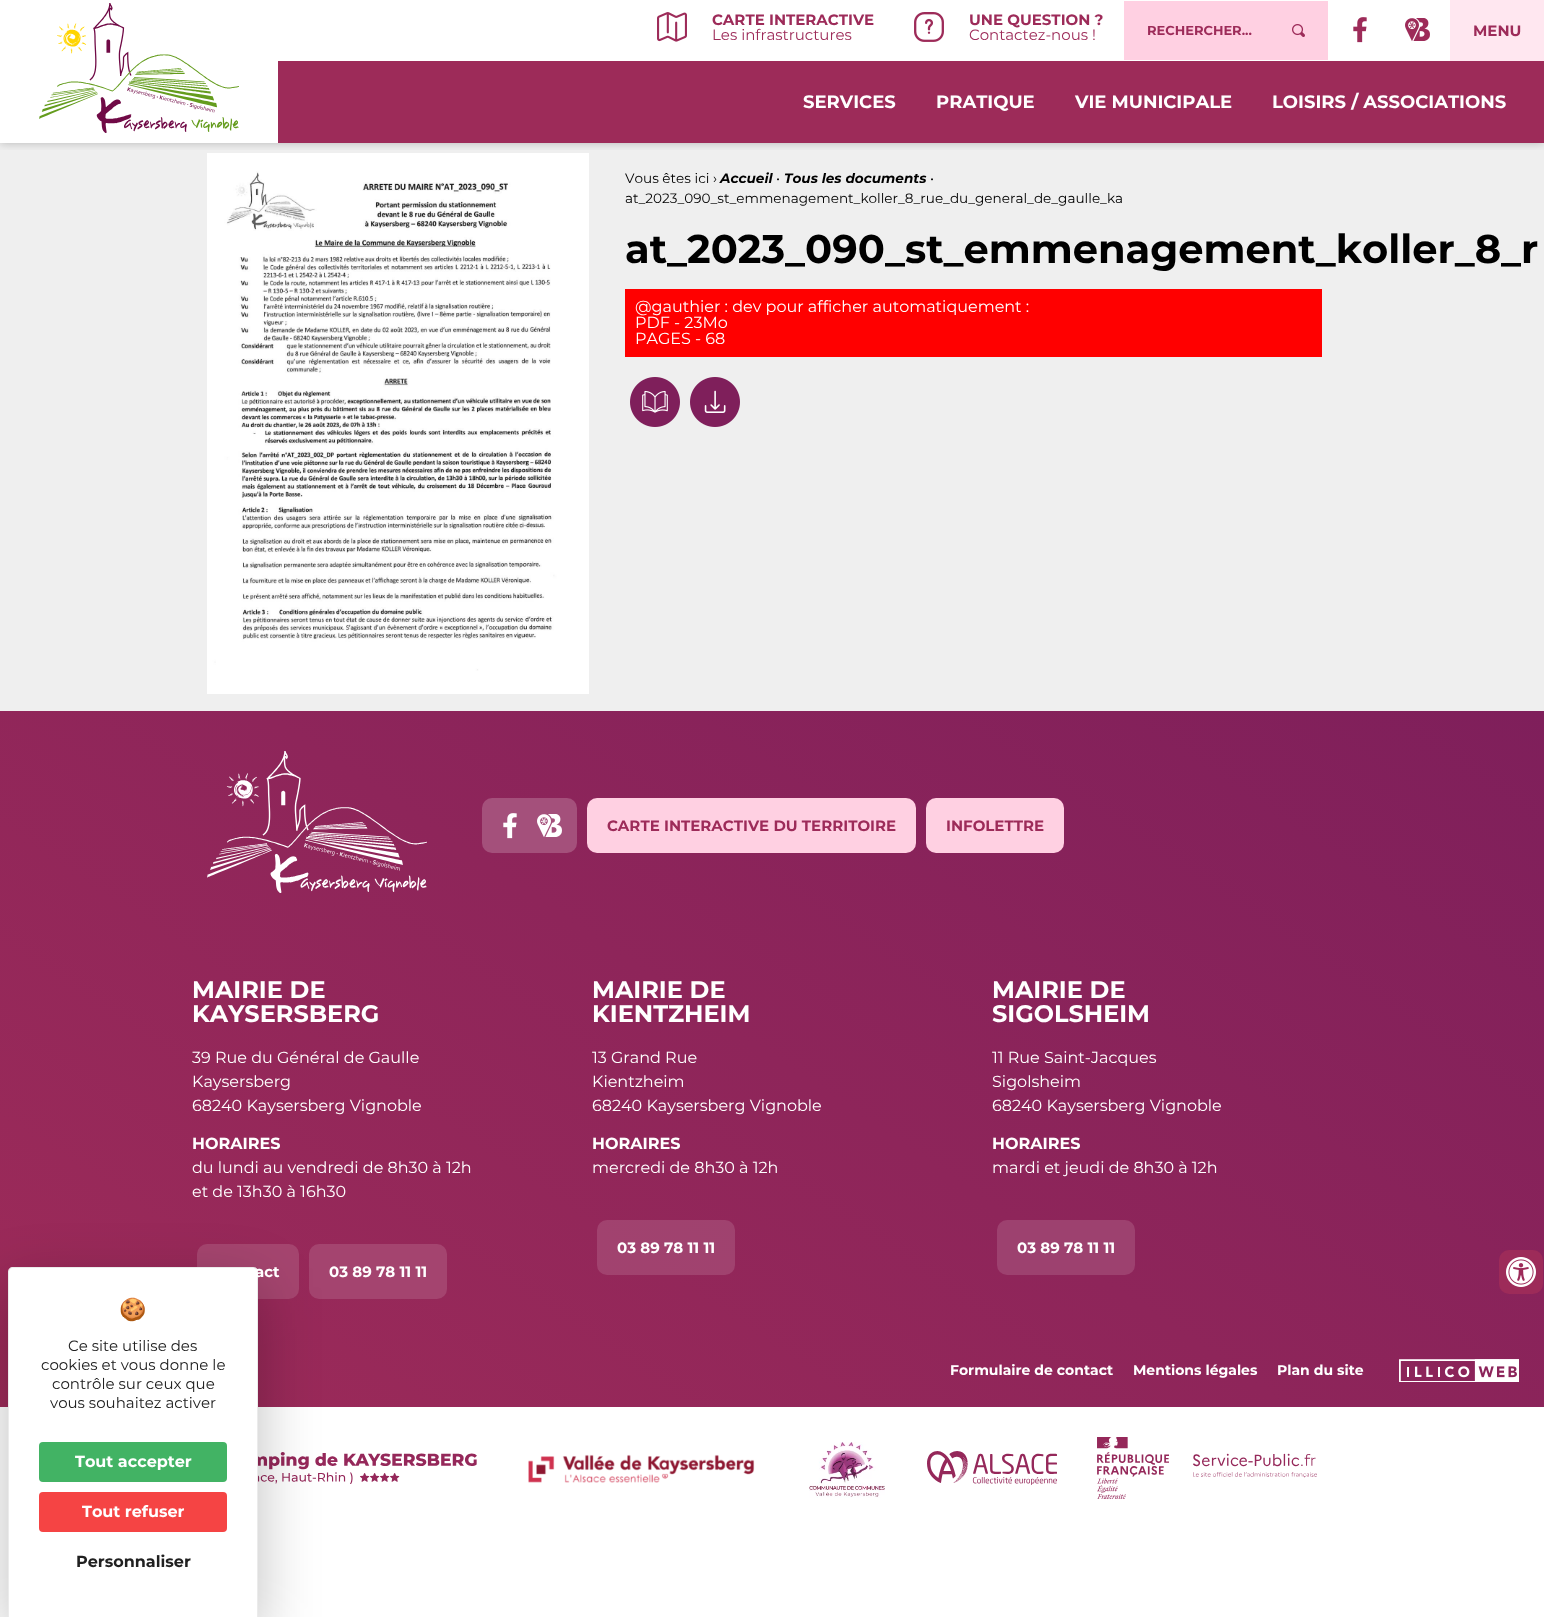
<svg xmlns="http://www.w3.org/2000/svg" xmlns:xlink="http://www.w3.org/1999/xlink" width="1544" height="1617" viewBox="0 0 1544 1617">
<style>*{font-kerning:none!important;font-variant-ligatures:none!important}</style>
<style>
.cls-1{font:bold 15px Montserrat;fill:#9d2b59}
.cls-2{font:15px Montserrat;fill:#9d2b59}
.cls-3{font:bold 13px Montserrat;fill:#9d2b59}
.cls-4{font:bold 18px Montserrat;fill:#ffffff}
.cls-5{font:13.6px Montserrat;fill:#000000}
.cls-6{font:italic bold 13.6px Montserrat;fill:#000000}
.cls-7{font:bold 40px Montserrat;fill:#000000}
.cls-8{font:16px Montserrat;fill:#ffffff}
.cls-9{font:bold 24px Montserrat;fill:#ffffff}
.cls-10{font:bold 16px Montserrat;fill:#ffffff}
.cls-11{font:bold 15px Montserrat;fill:#ffffff}
.cls-12{font:bold 14px Montserrat;fill:#ffffff}
.cls-13{font:22px Noto Color Emoji;fill:#202020}
.cls-14{font:15px Montserrat;fill:#202020}
.cls-15{font:bold 16px Montserrat;fill:#202020}
</style>
<defs>
<clipPath id="clip1"><rect x="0" y="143" width="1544" height="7"/></clipPath>
<linearGradient id="g1" gradientUnits="userSpaceOnUse" x1="1175" y1="462" x2="369" y2="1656"><stop offset="0" stop-color="#7f1f5b"/><stop offset="1" stop-color="#9d2b59"/></linearGradient>
</defs>
<rect width="100%" height="100%" fill="#ffffff"/>
<rect fill="#efefef" x="0" y="143" width="1544" height="568"/>
<image xlink:href="image6.png" x="207" y="153" width="382" height="541"/>
<g clip-path="url(#clip1)">
<rect fill="#000000" fill-opacity="0.24" filter="blur(5px)" x="0" y="0" width="1544" height="143"/>
</g>
<image xlink:href="image0.png" x="39" y="3" width="200" height="130"/>
<image xlink:href="image1.png" x="657" y="12" width="30" height="30"/>
<image xlink:href="image2.png" x="914" y="12" width="30" height="30"/>
<rect fill="#ffd0e2" x="1124" y="1" width="204" height="59"/>
<image xlink:href="image3.png" x="1292" y="24" width="13" height="13"/>
<image xlink:href="image4.png" x="1353" y="17" width="14" height="26"/>
<image xlink:href="image5.png" x="1405" y="18" width="25" height="23"/>
<rect fill="#ffe7f0" x="1450" y="0" width="94" height="61"/>
<rect fill="#9d2b59" x="278" y="61" width="1266" height="82"/>
<rect fill="#ff0000" x="625" y="289" width="697" height="68"/>
<image xlink:href="image7.png" x="630" y="377" width="50" height="50"/>
<image xlink:href="image8.png" x="690" y="377" width="50" height="50"/>
<rect fill="url(#g1)" x="0" y="711" width="1544" height="696"/>
<image xlink:href="image9.png" x="207" y="751" width="220" height="142"/>
<rect fill="#a4507b" x="482" y="798" width="95" height="55" rx="10"/>
<image xlink:href="image10.png" x="503" y="813" width="14" height="26"/>
<image xlink:href="image11.png" x="537" y="814" width="25" height="23"/>
<rect fill="#ffd0e2" x="587" y="798" width="329" height="55" rx="10"/>
<rect fill="#ffd0e2" x="926" y="798" width="138" height="55" rx="10"/>
<rect fill="#a5456f" x="197" y="1244" width="102" height="55" rx="10"/>
<rect fill="#a4446f" x="309" y="1244" width="138" height="55" rx="10"/>
<rect fill="#ffffff" fill-opacity="0.13" x="597" y="1220" width="138" height="55" rx="10"/>
<rect fill="#9d416f" x="997" y="1220" width="138" height="55" rx="10"/>
<image xlink:href="image12.png" x="1399" y="1359" width="120" height="23"/>
<image xlink:href="image13.png" x="258" y="1452" width="219" height="32"/>
<image xlink:href="image14.png" x="528" y="1454" width="227" height="29"/>
<image xlink:href="image15.png" x="809" y="1442" width="76" height="56"/>
<image xlink:href="image16.png" x="927" y="1451" width="130" height="34"/>
<image xlink:href="image17.png" x="1097" y="1437" width="220" height="62"/>
<rect fill="#9d2b59" x="1499" y="1250" width="44" height="44" rx="10"/>
<image xlink:href="image18.png" x="1506" y="1257" width="30" height="30"/>
<rect fill="#000000" fill-opacity="0.25" filter="blur(30px)" x="8" y="1287" width="250" height="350" rx="5"/>
<path fill="#ffffff" d="M13 1267H253C256 1267 258 1269 258 1272V1617H8V1272C8 1269 10 1267 13 1267Z"/>
<path fill="#000000" fill-opacity="0.08" fill-rule="evenodd" d="M13 1267H253C256 1267 258 1269 258 1272V1617H8V1272C8 1269 10 1267 13 1267ZM13 1268H253C255 1268 257 1270 257 1272V1617H9V1272C9 1270 11 1268 13 1268Z"/>
<rect fill="#42b364" x="39" y="1442" width="188" height="40" rx="4"/>
<rect fill="#f54444" x="39" y="1492" width="188" height="40" rx="4"/>
<text class="cls-1" x="712" y="25">CARTE INTERACTIVE</text>
<text class="cls-2" x="712" y="40">Les infrastructures</text>
<text class="cls-1" x="969" y="25">UNE QUESTION ?</text>
<text class="cls-2" x="969" y="40">Contactez-nous !</text>
<text class="cls-3" x="1147" y="35">RECHERCHER...</text>
<text class="cls-1" x="1473" y="36">MENU</text>
<text class="cls-4" x="803" y="108">SERVICES</text>
<text class="cls-4" x="936" y="108">PRATIQUE</text>
<text class="cls-4" x="1075" y="108">VIE MUNICIPALE</text>
<text class="cls-4" x="1272" y="108">LOISIRS / ASSOCIATIONS</text>
<text class="cls-5" x="625" y="183">Vous êtes ici ›</text>
<text class="cls-6" x="720" y="183">Accueil</text>
<text class="cls-5" x="776" y="183">•</text>
<text class="cls-6" x="784" y="183">Tous les documents</text>
<text class="cls-5" x="930" y="183">•</text>
<text class="cls-5" x="625" y="203">at_2023_090_st_emmenagement_koller_8_rue_du_general_de_gaulle_ka</text>
<text class="cls-7" x="625" y="263">at_2023_090_st_emmenagement_koller_8_r</text>
<text class="cls-8"><tspan x="635" y="312">@gauthier : dev pour afficher automatiquement :</tspan><tspan x="635" y="328">PDF - 23Mo</tspan><tspan x="635" y="344">PAGES - 68</tspan></text>
<text class="cls-1" x="607" y="831">CARTE INTERACTIVE DU TERRITOIRE</text>
<text class="cls-1" x="946" y="831">INFOLETTRE</text>
<text class="cls-9"><tspan x="192" y="998">MAIRIE DE</tspan><tspan x="192" y="1022">KAYSERSBERG</tspan></text>
<text class="cls-8"><tspan x="192" y="1063">39 Rue du Général de Gaulle</tspan><tspan x="192" y="1087">Kaysersberg</tspan><tspan x="192" y="1111">68240 Kaysersberg Vignoble</tspan></text>
<text class="cls-10" x="192" y="1149">HORAIRES</text>
<text class="cls-8"><tspan x="192" y="1173">du lundi au vendredi de 8h30 à 12h</tspan><tspan x="192" y="1197">et de 13h30 à 16h30</tspan></text>
<text class="cls-11" x="255" y="1277">act</text>
<text class="cls-11" x="329" y="1277">03 89 78 11 11</text>
<text class="cls-9"><tspan x="592" y="998">MAIRIE DE</tspan><tspan x="592" y="1022">KIENTZHEIM</tspan></text>
<text class="cls-8"><tspan x="592" y="1063">13 Grand Rue</tspan><tspan x="592" y="1087">Kientzheim</tspan><tspan x="592" y="1111">68240 Kaysersberg Vignoble</tspan></text>
<text class="cls-10" x="592" y="1149">HORAIRES</text>
<text class="cls-8" x="592" y="1173">mercredi de 8h30 à 12h</text>
<text class="cls-11" x="617" y="1253">03 89 78 11 11</text>
<text class="cls-9"><tspan x="992" y="998">MAIRIE DE</tspan><tspan x="992" y="1022">SIGOLSHEIM</tspan></text>
<text class="cls-8"><tspan x="992" y="1063">11 Rue Saint-Jacques</tspan><tspan x="992" y="1087">Sigolsheim</tspan><tspan x="992" y="1111">68240 Kaysersberg Vignoble</tspan></text>
<text class="cls-10" x="992" y="1149">HORAIRES</text>
<text class="cls-8" x="992" y="1173">mardi et jeudi de 8h30 à 12h</text>
<text class="cls-11" x="1017" y="1253">03 89 78 11 11</text>
<text class="cls-12" x="950" y="1375">Formulaire de contact</text>
<text class="cls-12" x="1133" y="1375">Mentions légales</text>
<text class="cls-12" x="1277" y="1375">Plan du site</text>
<text class="cls-13" x="119" y="1317">🍪</text>
<text class="cls-14" x="68" y="1351">Ce site utilise des</text>
<text class="cls-14" x="41" y="1370">cookies et vous donne le</text>
<text class="cls-14" x="52" y="1389">contrôle sur ceux que</text>
<text class="cls-14" x="50" y="1408">vous souhaitez activer</text>
<text class="cls-10" x="75" y="1467">Tout accepter</text>
<text class="cls-10" x="82" y="1517">Tout refuser</text>
<text class="cls-15" x="76" y="1567">Personnaliser</text>
</svg>
